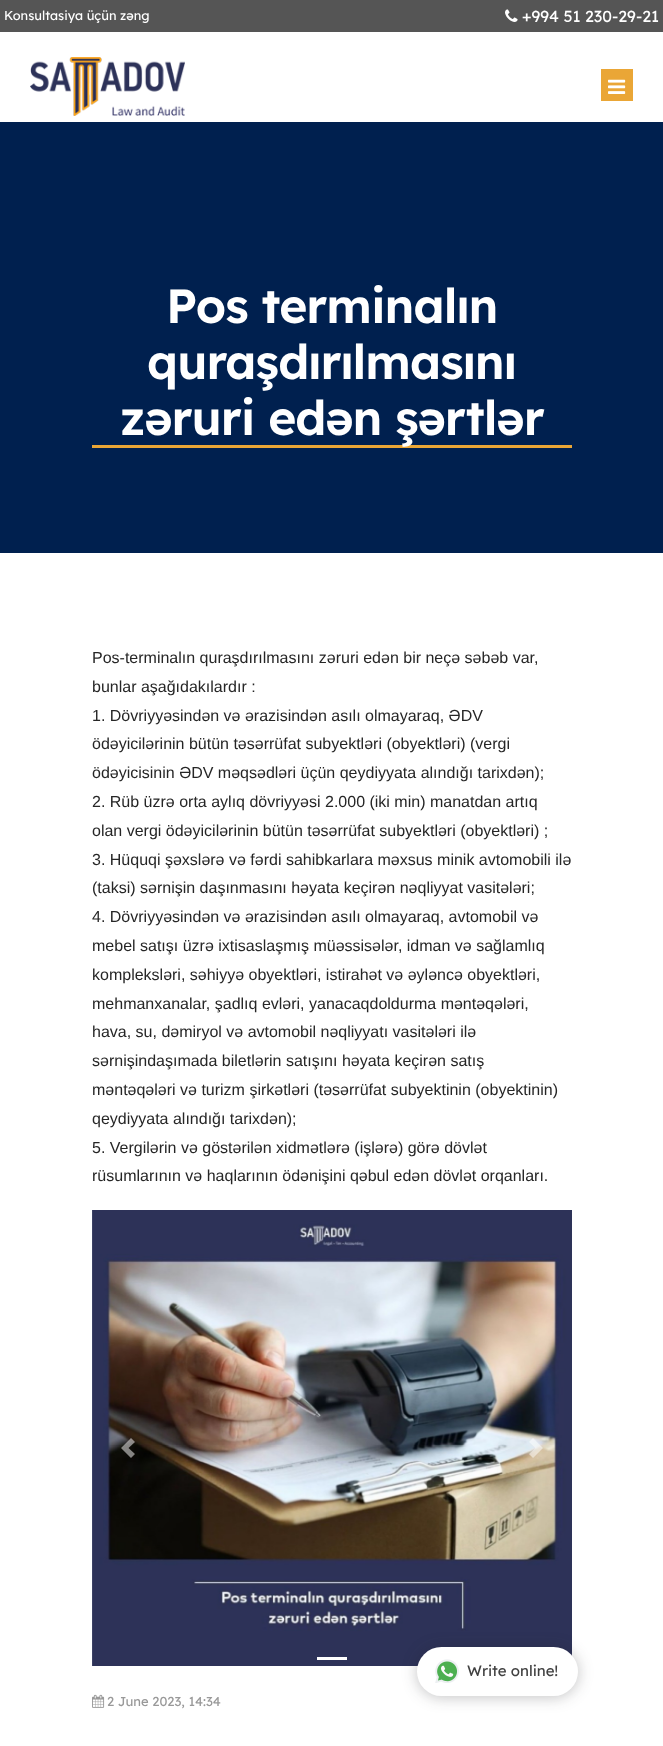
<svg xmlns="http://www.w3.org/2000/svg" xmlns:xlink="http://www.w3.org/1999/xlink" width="663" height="1746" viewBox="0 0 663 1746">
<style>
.cls-1{font:12.75px Lexend;fill:#ffffff}
.cls-2{font:16px Lexend;fill:#ffffff}
.cls-3{font:600 48px Lexend;letter-spacing:-1px;fill:#ffffff}
.cls-4{font:16px Liberation Sans;fill:#262626}
.cls-5{font:13px Lexend;fill:#999999}
.cls-6{font:15px Lexend;fill:#404040}
</style>
<rect width="100%" height="100%" fill="#ffffff"/>
<rect fill="#555555" x="0" y="0" width="663" height="32"/>
<image xlink:href="image0.png" x="505" y="9" width="13" height="13"/>
<image xlink:href="image1.png" x="30" y="57" width="155" height="59"/>
<rect fill="#eaa636" x="601" y="69" width="32" height="32"/>
<image xlink:href="image2.png" x="608" y="79" width="18" height="15"/>
<rect fill="#00204f" x="0" y="122" width="663" height="431"/>
<rect fill="#eaa636" x="92" y="445" width="480" height="3"/>
<image xlink:href="image3.png" x="92" y="1210" width="480" height="456"/>
<path fill="#ffffff" fill-opacity="0.5" d="M131 1438L121 1448L131 1458L135 1454L128.5 1448L135 1442Z"/>
<path fill="#ffffff" fill-opacity="0.5" d="M533 1438L529 1442L535.5 1448L529 1454L533 1458L543 1448Z"/>
<rect fill="#ffffff" x="317" y="1657" width="30" height="3"/>
<image xlink:href="image4.png" x="92" y="1694" width="13" height="14"/>
<rect fill="#202124" fill-opacity="0.28" filter="blur(7.5px)" x="417" y="1648" width="161" height="49" rx="24.5"/>
<rect fill="#ffffff" x="417" y="1647" width="161" height="49" rx="24.5"/>
<image xlink:href="image5.png" x="435" y="1659" width="24" height="24"/>
<text class="cls-1" x="4" y="20">Konsultasiya üçün zəng</text>
<text class="cls-2" x="522" y="22">+994 51 230-29-21</text>
<text class="cls-3" x="166" y="323">Pos terminalın</text>
<text class="cls-3" x="147" y="379">quraşdırılmasını</text>
<text class="cls-3" x="120" y="435">zəruri edən şərtlər</text>
<text class="cls-4"><tspan x="92" y="663">Pos-terminalın quraşdırılmasını zəruri edən bir neçə səbəb var,</tspan><tspan x="92" y="692">bunlar aşağıdakılardır :</tspan><tspan x="92" y="721">1. Dövriyyəsindən və ərazisindən asılı olmayaraq, ƏDV</tspan><tspan x="92" y="749">ödəyicilərinin bütün təsərrüfat subyektləri (obyektləri) (vergi</tspan><tspan x="92" y="778">ödəyicisinin ƏDV məqsədləri üçün qeydiyyata alındığı tarixdən);</tspan><tspan x="92" y="807">2. Rüb üzrə orta aylıq dövriyyəsi 2.000 (iki min) manatdan artıq</tspan><tspan x="92" y="836">olan vergi ödəyicilərinin bütün təsərrüfat subyektləri (obyektləri) ;</tspan><tspan x="92" y="865">3. Hüquqi şəxslərə və fərdi sahibkarlara məxsus minik avtomobili ilə</tspan><tspan x="92" y="893">(taksi) sərnişin daşınmasını həyata keçirən nəqliyyat vasitələri;</tspan><tspan x="92" y="922">4. Dövriyyəsindən və ərazisindən asılı olmayaraq, avtomobil və</tspan><tspan x="92" y="951">mebel satışı üzrə ixtisaslaşmış müəssisələr, idman və sağlamlıq</tspan><tspan x="92" y="980">kompleksləri, səhiyyə obyektləri, istirahət və əyləncə obyektləri,</tspan><tspan x="92" y="1009">mehmanxanalar, şadlıq evləri, yanacaqdoldurma məntəqələri,</tspan><tspan x="92" y="1037">hava, su, dəmiryol və avtomobil nəqliyyatı vasitələri ilə</tspan><tspan x="92" y="1066">sərnişindaşımada biletlərin satışını həyata keçirən satış</tspan><tspan x="92" y="1095">məntəqələri və turizm şirkətləri (təsərrüfat subyektinin (obyektinin)</tspan><tspan x="92" y="1124">qeydiyyata alındığı tarixdən);</tspan><tspan x="92" y="1153">5. Vergilərin və göstərilən xidmətlərə (işlərə) görə dövlət</tspan><tspan x="92" y="1181">rüsumlarının və haqlarının ödənişini qəbul edən dövlət orqanları.</tspan></text>
<text class="cls-5" x="107" y="1706">2 June 2023, 14:34</text>
<text class="cls-6" x="467" y="1676">Write online!</text>
</svg>
